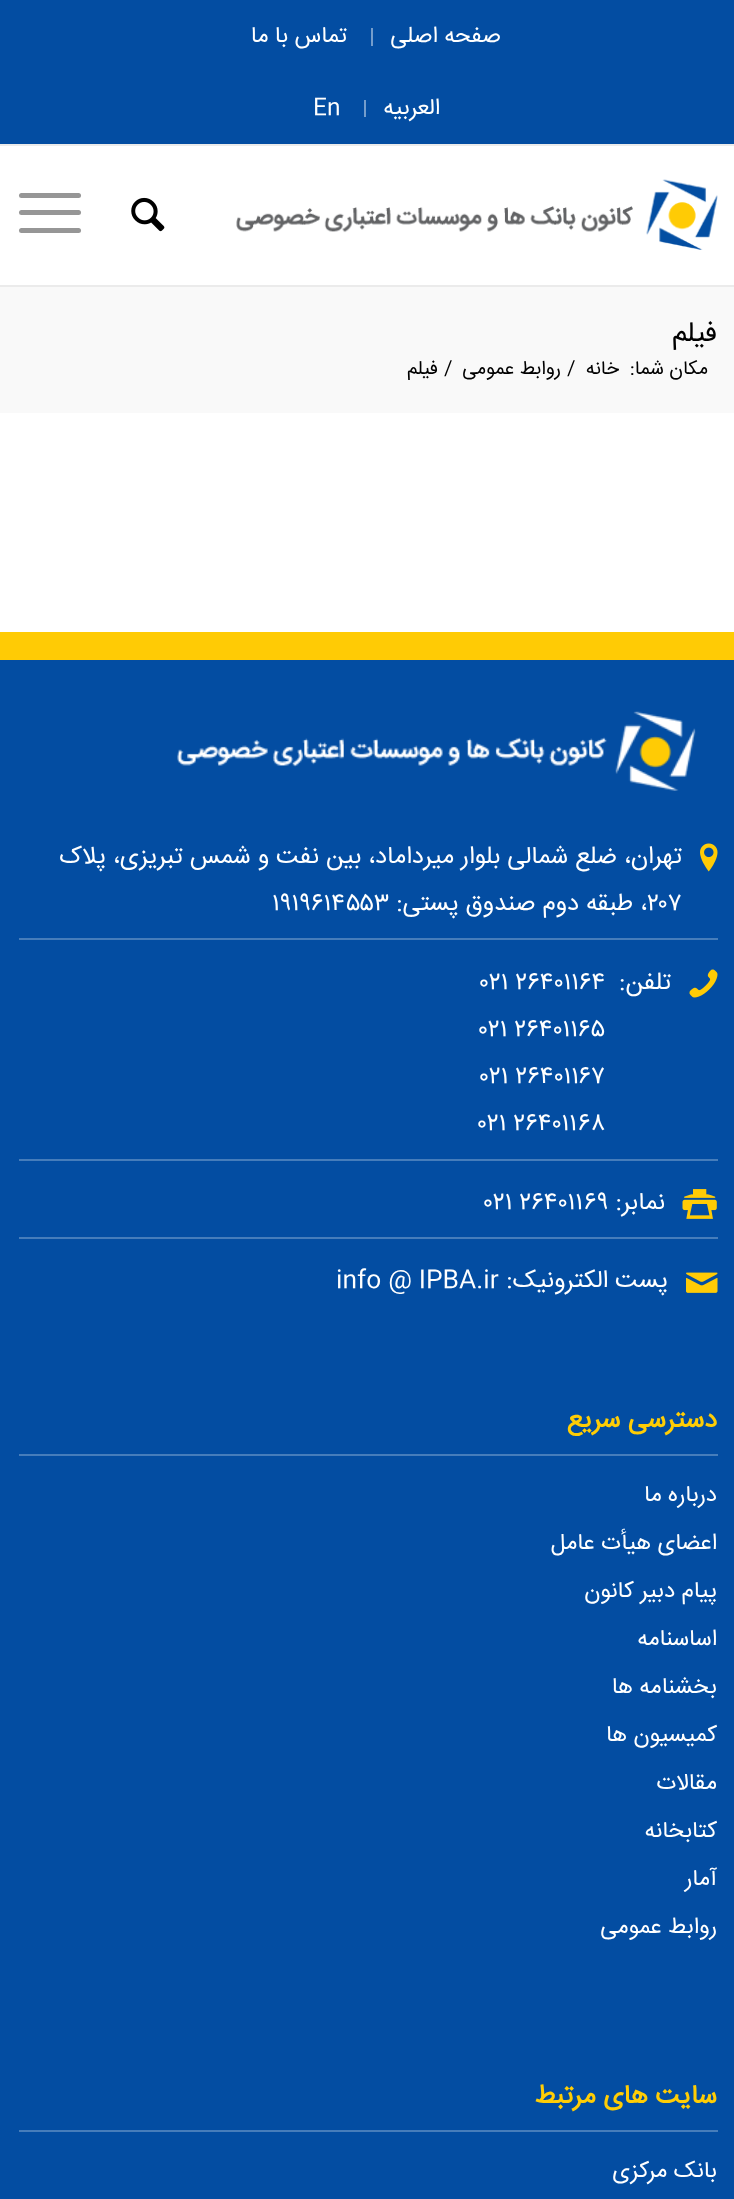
<svg xmlns="http://www.w3.org/2000/svg" xmlns:xlink="http://www.w3.org/1999/xlink" width="734" height="2199" viewBox="0 0 734 2199">
<style>
.cls-1{font:22.75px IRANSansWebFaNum;direction:rtl;fill:#ffffff}
.cls-2{font:22.75px IRANSansWebFaNum;fill:#ffffff}
.cls-3{font:28px IRANSansWebFaNum;direction:rtl;fill:#000000}
.cls-4{font:19.25px IRANSansWebFaNum;direction:rtl;fill:#000000}
.cls-5{font:19.25px IRANSansWebFaNum;fill:#000000}
.cls-6{font:24.5px IRANSansWebFaNum;direction:rtl;fill:#ffffff}
.cls-7{font:24.5px IRANSansWebFaNum;fill:#ffffff}
.cls-8{font:bold 26.25px IRANSansWebFaNum;direction:rtl;fill:#ffcd05}
</style>
<rect width="100%" height="100%" fill="#ffffff"/>
<rect fill="#034da2" x="0" y="0" width="734" height="144"/>
<rect fill="#ebebeb" x="0" y="144" width="734" height="2"/>
<rect fill="#749dcc" x="371" y="28" width="2" height="18"/>
<rect fill="#749dcc" x="364" y="100" width="2" height="17"/>
<rect fill="#ebebeb" x="0" y="285" width="734" height="2"/>
<image xlink:href="image0.png" x="236" y="179" width="482" height="71"/>
<image xlink:href="image1.png" x="131" y="197" width="34" height="35"/>
<rect fill="#969696" x="19" y="210" width="62" height="5" rx="2.5"/>
<rect fill="#969696" x="19" y="193" width="62" height="5" rx="2.5"/>
<rect fill="#969696" x="19" y="228" width="62" height="5" rx="2.5"/>
<rect fill="#f9f9f9" x="0" y="287" width="734" height="126"/>
<rect fill="#034da2" x="0" y="660" width="734" height="1539"/>
<rect fill="#ffcb05" x="0" y="632" width="734" height="28"/>
<image xlink:href="image2.png" x="177" y="711" width="519" height="80"/>
<rect fill="#467dbb" x="19" y="938" width="699" height="2"/>
<image xlink:href="image3.png" x="700" y="843" width="18" height="29"/>
<rect fill="#467dbb" x="19" y="1159" width="699" height="2"/>
<image xlink:href="image4.png" x="689" y="969" width="29" height="29"/>
<rect fill="#467dbb" x="19" y="1237" width="699" height="2"/>
<image xlink:href="image5.png" x="682" y="1189" width="35" height="30"/>
<image xlink:href="image6.png" x="686" y="1272" width="32" height="21"/>
<rect fill="#467dbb" x="19" y="1454" width="699" height="2"/>
<rect fill="#467dbb" x="19" y="2130" width="699" height="2"/>
<text class="cls-1" x="501" y="42">صفحه اصلی</text>
<text class="cls-1" x="347" y="42">تماس با ما</text>
<text class="cls-1" x="440" y="114">العربیه</text>
<text class="cls-2" x="313" y="114">En</text>
<text class="cls-3" x="717" y="341">فیلم</text>
<text class="cls-4" x="708" y="374">مکان شما:</text>
<text class="cls-4" x="619" y="374">خانه</text>
<text class="cls-5" x="567" y="374">/</text>
<text class="cls-4" x="561" y="374">روابط عمومی</text>
<text class="cls-5" x="444" y="374">/</text>
<text class="cls-4" x="438" y="374">فیلم</text>
<text class="cls-6" x="682" y="863">تهران، ضلع شمالی بلوار میرداماد، بین نفت و شمس تبریزی، پلاک</text>
<text class="cls-7" x="647" y="910">۲۰۷</text>
<text class="cls-6" x="647" y="910">، طبقه دوم صندوق پستی:</text>
<text class="cls-7" x="272" y="910">۱۹۱۹۶۱۴۵۵۳</text>
<text class="cls-6" x="671" y="989">تلفن:</text>
<text class="cls-7" x="480" y="989">۰۲۱ ۲۶۴۰۱۱۶۴</text>
<text class="cls-7" x="479" y="1036">۰۲۱ ۲۶۴۰۱۱۶۵</text>
<text class="cls-7" x="480" y="1083">۰۲۱ ۲۶۴۰۱۱۶۷</text>
<text class="cls-7" x="478" y="1130">۰۲۱ ۲۶۴۰۱۱۶۸</text>
<text class="cls-6" x="665" y="1209">نمابر:</text>
<text class="cls-7" x="484" y="1209">۰۲۱ ۲۶۴۰۱۱۶۹</text>
<text class="cls-6" x="668" y="1287">پست الکترونیک:</text>
<text class="cls-7" x="336" y="1287">info @ IPBA.ir</text>
<text class="cls-8" x="717" y="1427">دسترسی سریع</text>
<text class="cls-1" x="717" y="1501">درباره ما</text>
<text class="cls-1" x="717" y="1549">اعضای هیأت عامل</text>
<text class="cls-1" x="717" y="1597">پیام دبیر کانون</text>
<text class="cls-1" x="717" y="1645">اساسنامه</text>
<text class="cls-1" x="717" y="1693">بخشنامه ها</text>
<text class="cls-1" x="717" y="1741">کمیسیون ها</text>
<text class="cls-1" x="717" y="1789">مقالات</text>
<text class="cls-1" x="717" y="1837">کتابخانه</text>
<text class="cls-1" x="717" y="1885">آمار</text>
<text class="cls-1" x="717" y="1933">روابط عمومی</text>
<text class="cls-8" x="717" y="2103">سایت های مرتبط</text>
<text class="cls-1" x="717" y="2177">بانک مرکزی</text>
</svg>
